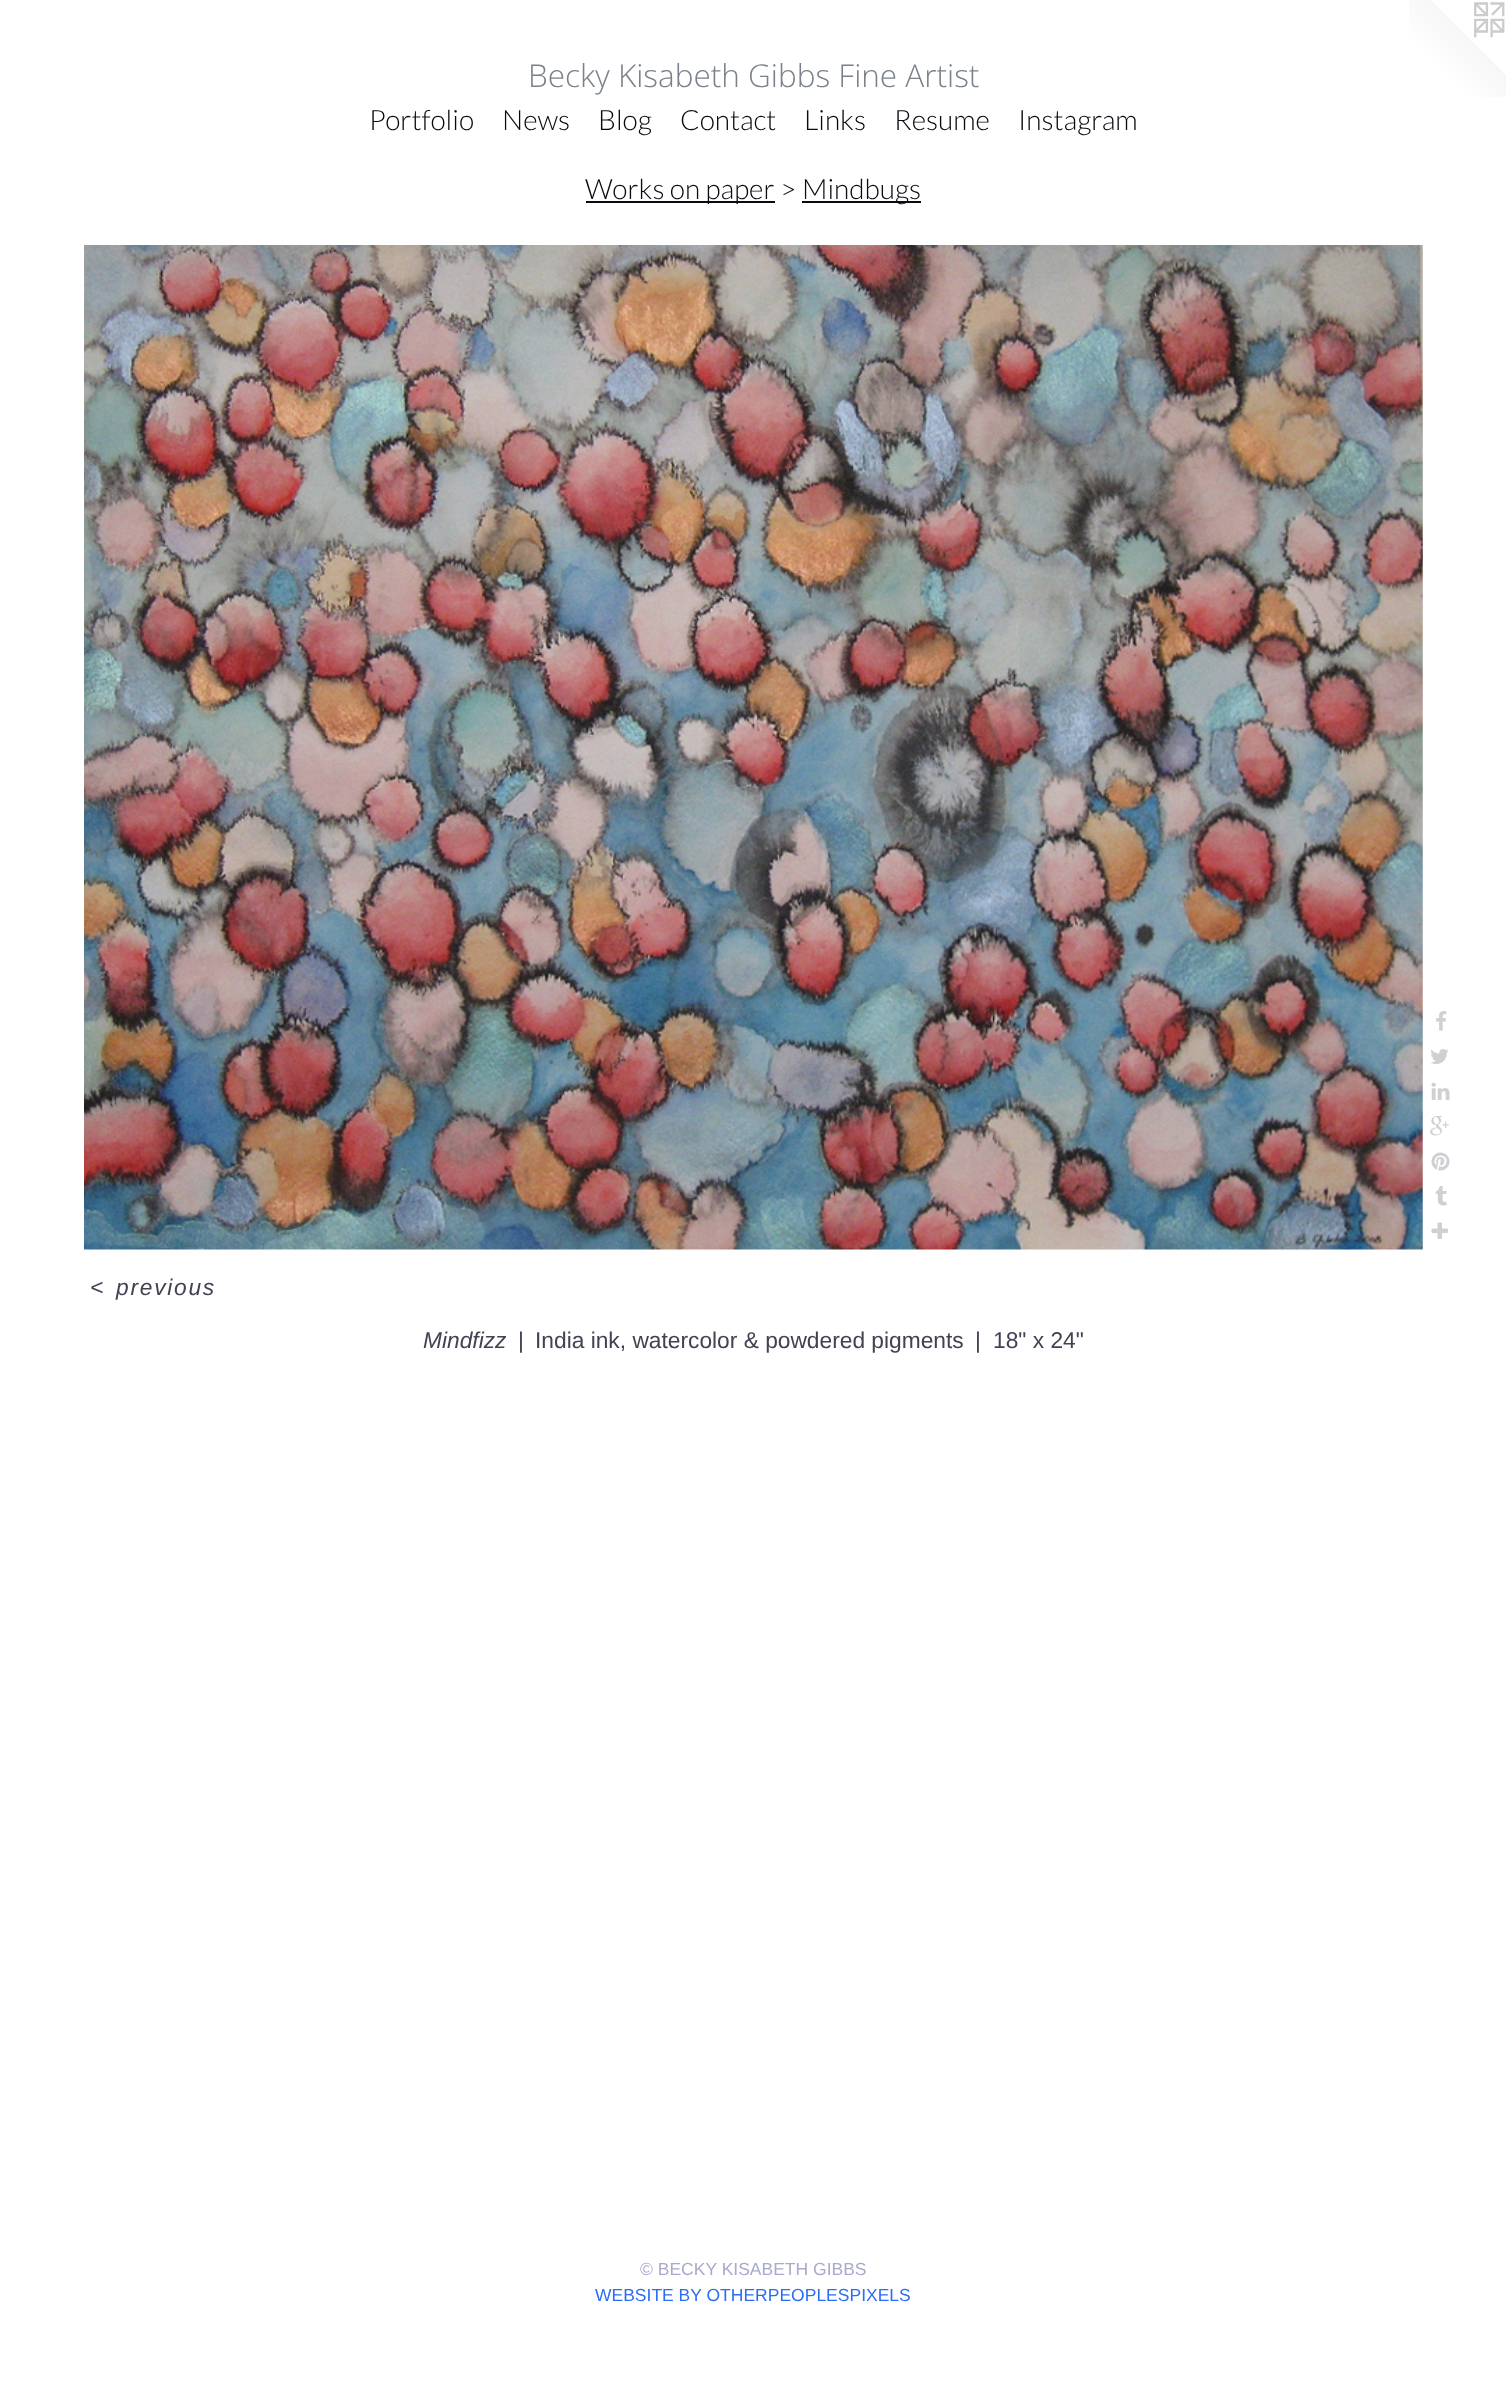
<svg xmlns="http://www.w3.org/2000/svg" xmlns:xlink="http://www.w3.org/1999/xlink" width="1506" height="2391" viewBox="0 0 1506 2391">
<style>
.cls-1{font:300 31.5px Open Sans;fill:#7b818a}
.cls-2{font:300 28px Lato;fill:#090a10}
.cls-3{font:italic 22.75px Liberation Sans;letter-spacing:1.75px;fill:#414353}
.cls-4{font:italic 22.75px Liberation Sans;fill:#414353}
.cls-5{font:22.75px Liberation Sans;fill:#414353}
.cls-6{font:17.5px Liberation Sans;fill:#a7aacd}
.cls-7{font:17.5px Liberation Sans;fill:#2a6df4}
</style>
<rect width="100%" height="100%" fill="#ffffff"/>
<image xlink:href="image0.png" x="1409" y="0" width="97" height="97"/>
<rect fill="#090a10" x="586" y="201" width="189" height="2"/>
<rect fill="#090a10" x="802" y="201" width="119" height="2"/>
<image xlink:href="image1.png" x="84" y="245" width="1339" height="1005"/>
<image xlink:href="image2.png" x="1436" y="1011" width="11" height="20"/>
<image xlink:href="image3.png" x="1430" y="1049" width="19" height="15"/>
<image xlink:href="image4.png" x="1431" y="1082" width="19" height="18"/>
<image xlink:href="image5.png" x="1430" y="1116" width="19" height="20"/>
<image xlink:href="image6.png" x="1431" y="1152" width="19" height="19"/>
<image xlink:href="image7.png" x="1435" y="1186" width="12" height="20"/>
<image xlink:href="image8.png" x="1431" y="1222" width="17" height="17"/>
<text class="cls-1" x="528" y="87">Becky Kisabeth Gibbs Fine Artist</text>
<text class="cls-2" x="369" y="130">Portfolio</text>
<text class="cls-2" x="502" y="130">News</text>
<text class="cls-2" x="598" y="130">Blog</text>
<text class="cls-2" x="680" y="130">Contact</text>
<text class="cls-2" x="804" y="130">Links</text>
<text class="cls-2" x="894" y="130">Resume</text>
<text class="cls-2" x="1018" y="130">Instagram</text>
<text class="cls-2" x="585" y="199">Works on paper &gt;</text>
<text class="cls-2" x="802" y="199">Mindbugs</text>
<text class="cls-3" x="90" y="1295">&lt;</text>
<text class="cls-3" x="116" y="1295">previous</text>
<text class="cls-4" x="423" y="1348">Mindfizz</text>
<text class="cls-5" x="518" y="1348">|</text>
<text class="cls-5" x="535" y="1348">India ink, watercolor &amp; powdered pigments</text>
<text class="cls-5" x="975" y="1348">|</text>
<text class="cls-5" x="993" y="1348">18" x 24"</text>
<text class="cls-6" x="640" y="2275">© BECKY KISABETH GIBBS</text>
<text class="cls-7" x="595" y="2301">WEBSITE BY OTHERPEOPLESPIXELS</text>
</svg>
